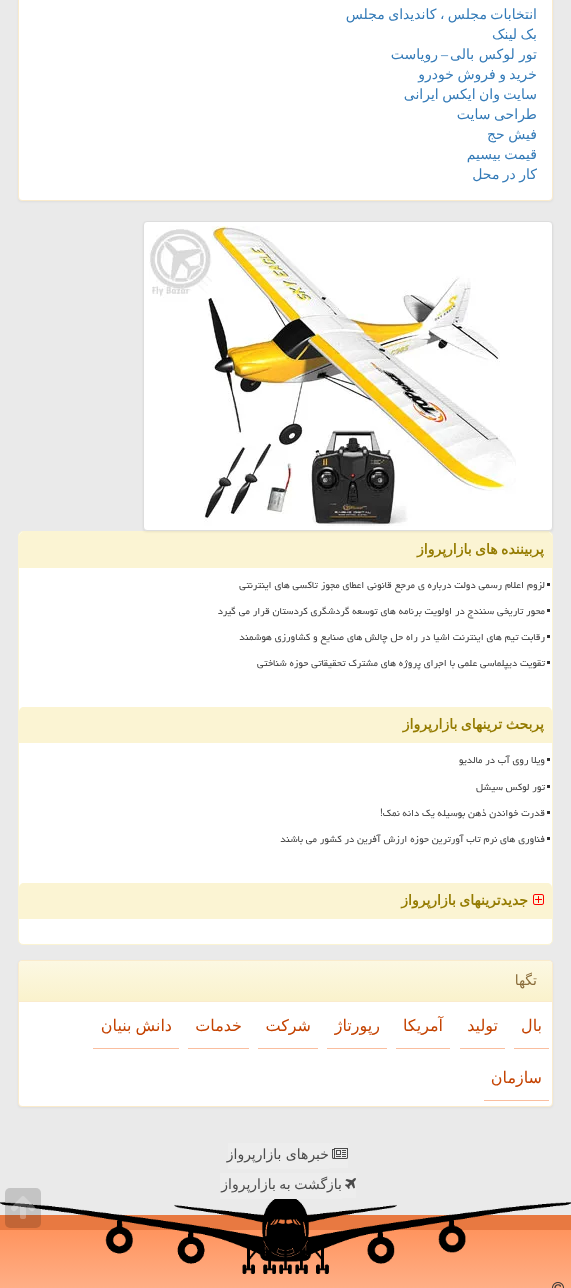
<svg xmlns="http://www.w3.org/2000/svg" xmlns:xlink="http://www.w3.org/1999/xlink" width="571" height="1288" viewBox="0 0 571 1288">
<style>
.cls-1{font:14px DejaVu Sans;direction:rtl;fill:#337ab7}
.cls-2{font:14px Liberation Serif;direction:rtl;fill:#337ab7}
.cls-3{font:bold 14px DejaVu Sans;direction:rtl;fill:#947b00}
.cls-4{font:12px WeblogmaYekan;direction:rtl;fill:#4a4a4a}
.cls-5{font:14px DejaVu Sans;direction:rtl;fill:#8a6d3b}
.cls-6{font:16px DejaVu Sans;direction:rtl;fill:#c44200}
.cls-7{font:14px DejaVu Sans;direction:rtl;fill:#4a4a4a}
</style>
<defs>
<linearGradient id="g1" gradientUnits="userSpaceOnUse" x1="286" y1="961" x2="286" y2="1001"><stop offset="0" stop-color="#fcf8e3"/><stop offset="1" stop-color="#faf2cc"/></linearGradient>
<linearGradient id="g2" gradientUnits="userSpaceOnUse" x1="286" y1="1230" x2="286" y2="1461"><stop offset="0" stop-color="#ff945e"/><stop offset="1" stop-color="#ffffff"/></linearGradient>
</defs>
<rect width="100%" height="100%" fill="#eaeaea"/>
<rect fill="#000000" fill-opacity="0.05" filter="blur(1px)" x="18" y="-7" width="535" height="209" rx="4"/>
<rect fill="#ffffff" stroke="#faebcc" x="18.5" y="-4.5" width="534" height="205" rx="3.5"/>
<rect fill="#ffffff" stroke="#fbf4d3" x="18.5" y="531.5" width="534" height="413" rx="4.5"/>
<path fill="#fbf4d3" d="M24 532H547C550 532 552 534 552 537V568H19V537C19 534 21 532 24 532Z"/>
<rect fill="#000000" fill-opacity="0.07" filter="blur(1px)" x="143" y="222" width="410" height="310" rx="4"/>
<rect fill="#ffffff" stroke="#dddddd" x="143.5" y="221.5" width="409" height="309" rx="3.5"/>
<image xlink:href="image0.png" x="149" y="226" width="367" height="300"/>
<rect fill="#333333" x="547" y="583" width="3" height="3"/>
<rect fill="#333333" x="547" y="609" width="3" height="3"/>
<rect fill="#333333" x="547" y="635" width="3" height="3"/>
<rect fill="#333333" x="547" y="661" width="3" height="3"/>
<path fill="#fbf4d3" d="M24 707H547C550 707 552 709 552 712V743H19V712C19 709 21 707 24 707Z"/>
<rect fill="#333333" x="547" y="758" width="3" height="3"/>
<rect fill="#333333" x="547" y="785" width="3" height="3"/>
<rect fill="#333333" x="547" y="811" width="3" height="3"/>
<rect fill="#333333" x="547" y="837" width="3" height="3"/>
<path fill="#fbf4d3" d="M24 883H547C550 883 552 885 552 888V919H19V888C19 885 21 883 24 883Z"/>
<image xlink:href="image1.png" x="533" y="894" width="11" height="11"/>
<rect fill="#000000" fill-opacity="0.05" filter="blur(1px)" x="18" y="961" width="535" height="147" rx="4"/>
<rect fill="#ffffff" stroke="#faebcc" x="18.5" y="960.5" width="534" height="146" rx="3.5"/>
<path fill="url(#g1)" d="M22 961H549C550.5 961 552 962.5 552 964V1001H19V964C19 962.5 20.5 961 22 961Z"/>
<rect fill="#faebcc" x="19" y="1001" width="533" height="1"/>
<rect fill="#fabe9f" x="514" y="1048" width="35" height="1"/>
<rect fill="#fabe9f" x="460" y="1048" width="45" height="1"/>
<rect fill="#fabe9f" x="396" y="1048" width="54" height="1"/>
<rect fill="#fabe9f" x="327" y="1048" width="60" height="1"/>
<rect fill="#fabe9f" x="258" y="1048" width="60" height="1"/>
<rect fill="#fabe9f" x="188" y="1048" width="61" height="1"/>
<rect fill="#fabe9f" x="93" y="1048" width="86" height="1"/>
<rect fill="#fabe9f" x="484" y="1100" width="65" height="1"/>
<path fill="#ededed" d="M332 1143H348V1168H332C329 1168 327 1166 327 1163V1148C327 1145 329 1143 332 1143Z"/>
<path fill="#ededed" d="M228 1143H327C330 1143 332 1145 332 1148V1164C332 1167 330 1169 327 1169H228Z"/>
<image xlink:href="image2.png" x="332" y="1148" width="16" height="11"/>
<path fill="#ededed" d="M345 1173H356V1198H345C342 1198 340 1196 340 1193V1178C340 1175 342 1173 345 1173Z"/>
<path fill="#ededed" d="M220 1173H340C343 1173 345 1175 345 1178V1194C345 1197 343 1199 340 1199H220Z"/>
<image xlink:href="image3.png" x="345" y="1178" width="11" height="11"/>
<rect fill="#e87941" x="0" y="1215" width="571" height="15"/>
<rect fill="url(#g2)" x="0" y="1230" width="571" height="58"/>
<image xlink:href="image5.png" x="0" y="1199" width="571" height="75"/>
<rect fill="#000000" fill-opacity="0.16" x="5" y="1188" width="36" height="40" rx="5"/>
<image xlink:href="image4.png" x="11" y="1196" width="24" height="23"/>
<image xlink:href="image6.png" x="552" y="1282" width="12" height="6"/>
<text class="cls-1"><tspan x="537" y="19" word-spacing="-1">انتخابات مجلس ، کاندیدای مجلس</tspan><tspan x="537" y="39" word-spacing="-1">بک لینک</tspan><tspan x="537" y="59">تور لوکس بالی</tspan></text>
<text class="cls-2" x="448" y="59">–</text>
<text class="cls-1" x="438" y="59">رویاست</text>
<text class="cls-1"><tspan x="537" y="79" word-spacing="-1">خرید و فروش خودرو</tspan><tspan x="537" y="99" word-spacing="-1">سایت وان ایکس ایرانی</tspan><tspan x="537" y="119" word-spacing="-1">طراحی سایت</tspan><tspan x="537" y="139" word-spacing="-1">فیش حج</tspan><tspan x="537" y="159" word-spacing="-1">قیمت بیسیم</tspan><tspan x="537" y="179" word-spacing="-1">کار در محل</tspan></text>
<text class="cls-3" x="544" y="554" word-spacing="-1">پربیننده های بازارپرواز</text>
<text class="cls-4" x="545" y="588">لزوم اعلام رسمی دولت درباره ی مرجع قانونی اعطای مجوز تاکسی های اینترنتی</text>
<text class="cls-4" x="545" y="614">محور تاریخی سنندج در اولویت برنامه های توسعه گردشگری کردستان قرار می گیرد</text>
<text class="cls-4" x="545" y="640">رقابت تیم های اینترنت اشیا در راه حل چالش های صنایع و کشاورزی هوشمند</text>
<text class="cls-4" x="545" y="666">تقویت دیپلماسی علمی با اجرای پروژه های مشترک تحقیقاتی حوزه شناختی</text>
<text class="cls-3" x="544" y="729" word-spacing="-1">پربحث ترینهای بازارپرواز</text>
<text class="cls-4" x="545" y="763">ویلا روی آب در مالدیو</text>
<text class="cls-4" x="545" y="790">تور لوکس سیشل</text>
<text class="cls-4" x="545" y="816">قدرت خواندن ذهن بوسیله یک دانه نمک!</text>
<text class="cls-4" x="545" y="842">فناوری های نرم تاب آورترین حوزه ارزش آفرین در کشور می باشند</text>
<text class="cls-3" x="528" y="905" word-spacing="-1">جدیدترینهای بازارپرواز</text>
<text class="cls-5" x="537" y="985">تگها</text>
<text class="cls-6" x="542" y="1031">بال</text>
<text class="cls-6" x="498" y="1031">تولید</text>
<text class="cls-6" x="443" y="1031">آمریكا</text>
<text class="cls-6" x="380" y="1031">رپورتاژ</text>
<text class="cls-6" x="311" y="1031">شركت</text>
<text class="cls-6" x="242" y="1031">خدمات</text>
<text class="cls-6" x="172" y="1031" word-spacing="-1">دانش بنیان</text>
<text class="cls-6" x="542" y="1083">سازمان</text>
<text class="cls-7" x="329" y="1159">خبرهای بازارپرواز</text>
<text class="cls-7" x="342" y="1189" word-spacing="-1">بازگشت به بازارپرواز</text>
</svg>
